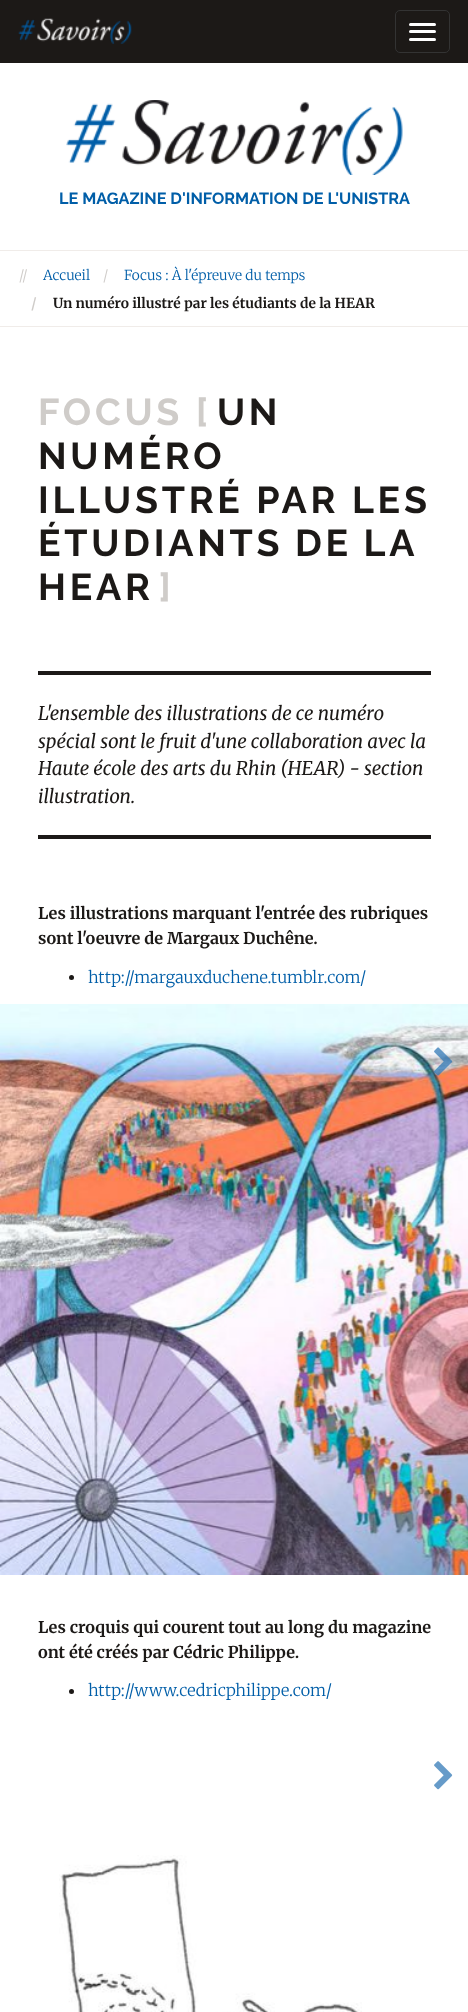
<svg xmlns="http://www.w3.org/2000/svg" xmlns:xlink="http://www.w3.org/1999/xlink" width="468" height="2012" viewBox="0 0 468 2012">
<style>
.cls-1{font:bold 16.25px Raleway;fill:#005ea8}
.cls-2{font:300 13.75px Merriweather;fill:#cfccc9}
.cls-3{font:300 13.75px Merriweather;fill:#005ea8}
.cls-4{font:bold 13.75px Merriweather;fill:#cfccc9}
.cls-5{font:bold 13.75px Merriweather;fill:#1c1917}
.cls-6{font:bold 37.5px Raleway;letter-spacing:3.75px;fill:#cfccc9}
.cls-7{font:bold 37.5px Raleway;letter-spacing:3.75px;fill:#1c1917}
.cls-8{font:italic 18.75px Merriweather;fill:#1c1917}
.cls-9{font:bold 16.25px Merriweather;fill:#1c1917}
.cls-10{font:300 16.25px Merriweather;fill:#005ea8}
</style>
<rect width="100%" height="100%" fill="#ffffff"/>
<rect fill="#1c1917" x="0" y="0" width="468" height="63"/>
<image xlink:href="image0.png" x="18" y="18" width="114" height="26"/>
<rect fill="none" stroke="#333333" x="395.5" y="10.5" width="54" height="42" rx="4.5"/>
<rect fill="#ffffff" x="409" y="23" width="27" height="3" rx="1.5"/>
<rect fill="#ffffff" x="409" y="30" width="27" height="3" rx="1.5"/>
<rect fill="#ffffff" x="409" y="38" width="27" height="3" rx="1.5"/>
<image xlink:href="image1.png" x="66" y="100" width="337" height="75"/>
<rect fill="#f0ece9" x="0" y="250" width="468" height="1"/>
<rect fill="#f0ece9" x="0" y="326" width="468" height="1"/>
<rect fill="#1c1917" x="38" y="671" width="393" height="4"/>
<rect fill="#1c1917" x="38" y="835" width="393" height="4"/>
<circle fill="#1c1917" cx="71.5" cy="977.5" r="2.5"/>
<image xlink:href="image2.png" x="0" y="1004" width="468" height="571"/>
<image xlink:href="image3.png" x="434" y="1047" width="19" height="29"/>
<circle fill="#1c1917" cx="71.5" cy="1691.5" r="2.5"/>
<image xlink:href="image4.png" x="434" y="1761" width="19" height="29"/>
<image xlink:href="image5.png" x="59" y="1855" width="303" height="157"/>
<text class="cls-1" x="59" y="204">LE MAGAZINE D'INFORMATION DE L'UNISTRA</text>
<text class="cls-2" x="19" y="280">//</text>
<text class="cls-3" x="43" y="280">Accueil</text>
<text class="cls-2" x="103" y="280">/</text>
<text class="cls-3" x="124" y="280">Focus : À l'épreuve du temps</text>
<text class="cls-4" x="31" y="308">/</text>
<text class="cls-5" x="53" y="308">Un numéro illustré par les étudiants de la HEAR</text>
<text class="cls-6" x="38" y="425">FOCUS [</text>
<text class="cls-7" x="217" y="425">UN</text>
<text class="cls-7"><tspan x="38" y="469">NUMÉRO</tspan><tspan x="38" y="513">ILLUSTRÉ PAR LES</tspan><tspan x="38" y="556" word-spacing="-1">ÉTUDIANTS DE LA</tspan><tspan x="38" y="600">HEAR</tspan></text>
<text class="cls-6" x="159" y="600">]</text>
<text class="cls-8"><tspan x="38" y="720">L'ensemble des illustrations de ce numéro</tspan><tspan x="38" y="748">spécial sont le fruit d'une collaboration avec la</tspan><tspan x="38" y="775">Haute école des arts du Rhin (HEAR) - section</tspan><tspan x="38" y="803">illustration.</tspan></text>
<text class="cls-9"><tspan x="38" y="919">Les illustrations marquant l'entrée des rubriques</tspan><tspan x="38" y="944">sont l'oeuvre de Margaux Duchêne.</tspan></text>
<text class="cls-10" x="88" y="983">http://margauxduchene.tumblr.com/</text>
<text class="cls-9"><tspan x="38" y="1633">Les croquis qui courent tout au long du magazine</tspan><tspan x="38" y="1658">ont été créés par Cédric Philippe.</tspan></text>
<text class="cls-10" x="88" y="1696">http://www.cedricphilippe.com/</text>
</svg>
